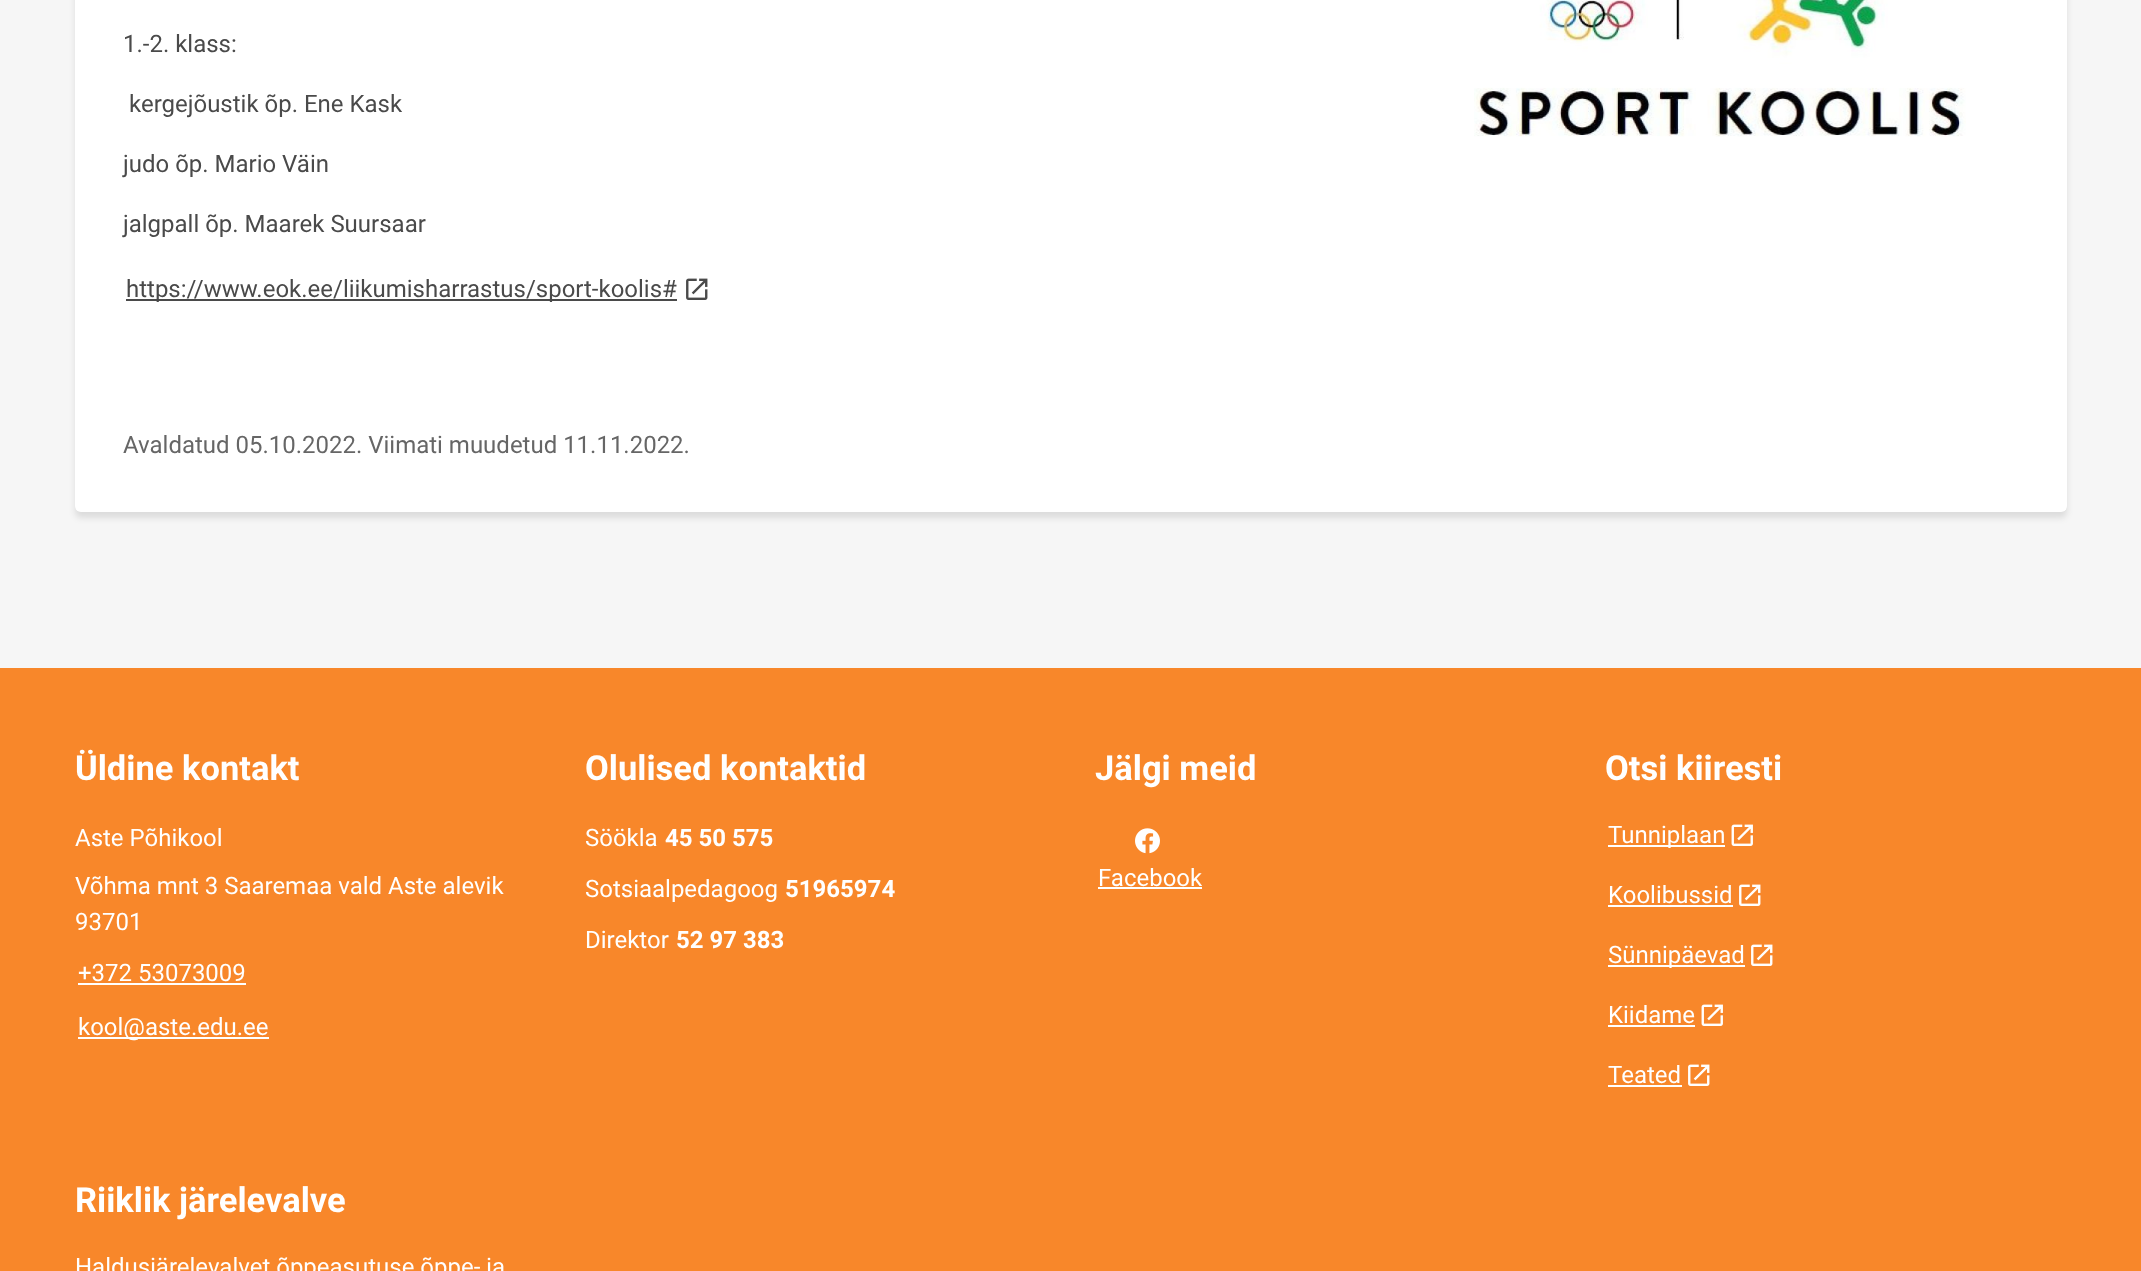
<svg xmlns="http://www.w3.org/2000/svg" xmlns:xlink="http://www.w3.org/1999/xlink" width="2141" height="1271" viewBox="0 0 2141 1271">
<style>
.cls-1{font:24px Roboto;fill:#4a4a4a}
.cls-2{font:24px Roboto;fill:#666666}
.cls-3{font:bold 34.5px Roboto;fill:#ffffff}
.cls-4{font:24px Roboto;fill:#ffffff}
.cls-5{font:bold 24px Roboto;fill:#ffffff}
</style>
<rect width="100%" height="100%" fill="#f6f6f6"/>
<rect fill="#000000" fill-opacity="0.1" filter="blur(3px)" x="75" y="-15" width="1992" height="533" rx="6"/>
<rect fill="#ffffff" x="75" y="-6" width="1992" height="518" rx="6"/>
<rect fill="#4a4a4a" x="126" y="299" width="551" height="2"/>
<image xlink:href="image0.png" x="686" y="278" width="22" height="22"/>
<image xlink:href="image1.png" x="1474" y="0" width="492" height="137"/>
<rect fill="#f8872a" x="0" y="668" width="2141" height="603"/>
<rect fill="#ffffff" x="78" y="983" width="168" height="2"/>
<rect fill="#ffffff" x="78" y="1037" width="191" height="2"/>
<image xlink:href="image2.png" x="1135" y="828" width="25" height="26"/>
<rect fill="#ffffff" x="1098" y="887" width="104" height="2"/>
<rect fill="#ffffff" x="1608" y="845" width="117" height="2"/>
<image xlink:href="image3.png" x="1731" y="824" width="22" height="22"/>
<rect fill="#ffffff" x="1608" y="905" width="125" height="2"/>
<image xlink:href="image4.png" x="1739" y="884" width="22" height="22"/>
<rect fill="#ffffff" x="1608" y="965" width="137" height="2"/>
<image xlink:href="image4.png" x="1751" y="944" width="22" height="22"/>
<rect fill="#ffffff" x="1608" y="1025" width="87" height="2"/>
<image xlink:href="image3.png" x="1701" y="1004" width="22" height="22"/>
<rect fill="#ffffff" x="1608" y="1085" width="74" height="2"/>
<image xlink:href="image4.png" x="1688" y="1064" width="22" height="22"/>
<text class="cls-1" x="123" y="52">1.-2. klass:</text>
<text class="cls-1" x="129" y="112">kergejõustik õp. Ene Kask</text>
<text class="cls-1" x="123" y="172">judo õp. Mario Väin</text>
<text class="cls-1" x="123" y="232">jalgpall õp. Maarek Suursaar</text>
<text class="cls-1" x="126" y="297">https://www.eok.ee/liikumisharrastus/sport-koolis#</text>
<text class="cls-2" x="123" y="453">Avaldatud 05.10.2022. Viimati muudetud 11.11.2022.</text>
<text class="cls-3" x="75" y="780">Üldine kontakt</text>
<text class="cls-4" x="75" y="846">Aste Põhikool</text>
<text class="cls-4"><tspan x="75" y="894">Võhma mnt 3 Saaremaa vald Aste alevik</tspan><tspan x="75" y="930">93701</tspan></text>
<text class="cls-4" x="78" y="981">+372 53073009</text>
<text class="cls-4" x="78" y="1035">kool@aste.edu.ee</text>
<text class="cls-3" x="585" y="780">Olulised kontaktid</text>
<text class="cls-4" x="585" y="846">Söökla</text>
<text class="cls-5" x="665" y="846">45 50 575</text>
<text class="cls-4" x="585" y="897">Sotsiaalpedagoog</text>
<text class="cls-5" x="785" y="897">51965974</text>
<text class="cls-4" x="585" y="948">Direktor</text>
<text class="cls-5" x="676" y="948">52 97 383</text>
<text class="cls-3" x="1095" y="780">Jälgi meid</text>
<text class="cls-4" x="1098" y="886">Facebook</text>
<text class="cls-3" x="1605" y="780">Otsi kiiresti</text>
<text class="cls-4" x="1608" y="843">Tunniplaan</text>
<text class="cls-4" x="1608" y="903">Koolibussid</text>
<text class="cls-4" x="1608" y="963">Sünnipäevad</text>
<text class="cls-4" x="1608" y="1023">Kiidame</text>
<text class="cls-4" x="1608" y="1083">Teated</text>
<text class="cls-3" x="75" y="1212">Riiklik järelevalve</text>
<text class="cls-4" x="75" y="1275">Haldusjärelevalvet õppeasutuse õppe- ja</text>
</svg>
